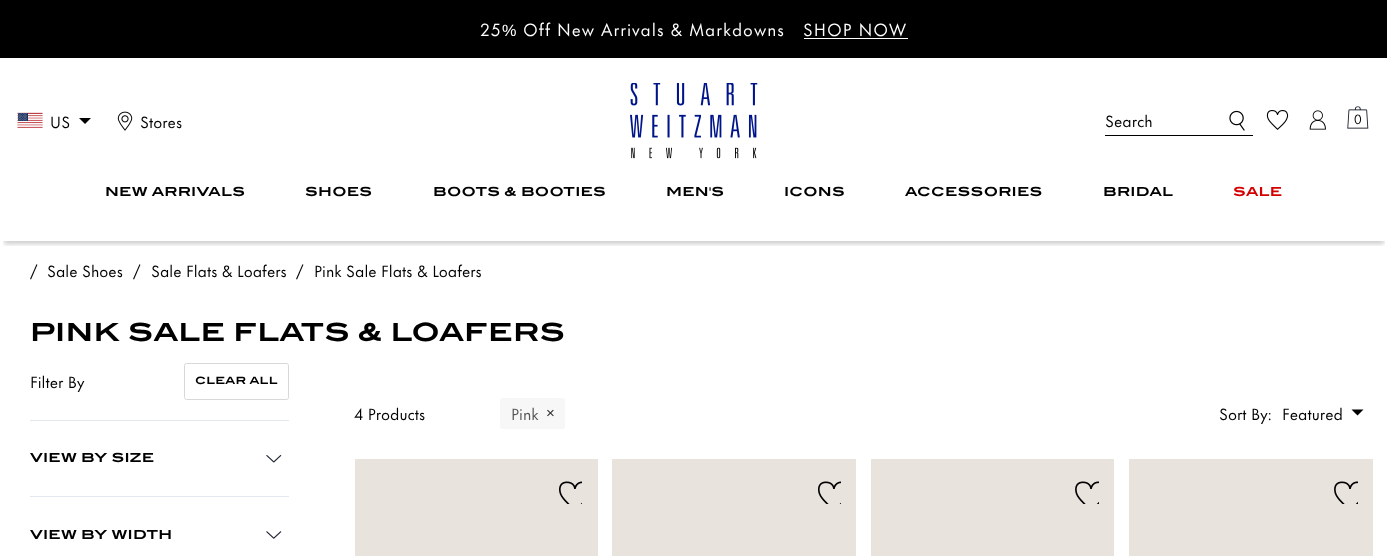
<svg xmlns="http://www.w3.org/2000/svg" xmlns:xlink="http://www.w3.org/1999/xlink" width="1387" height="556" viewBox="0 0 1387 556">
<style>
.cls-1{font:16.25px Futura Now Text;letter-spacing:1px;fill:#ffffff}
.cls-2{font:16.25px Liberation Sans;letter-spacing:1px;fill:#ffffff}
.cls-3{font:15px Futura Now Text;letter-spacing:0.25px;fill:#000000}
.cls-4{font:15px Futura Now Text;fill:#000000}
.cls-5{font:12.5px Futura Now Text;letter-spacing:0.25px;fill:#000000}
.cls-6{font:bold 12.5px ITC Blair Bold;letter-spacing:0.25px;fill:#000000}
.cls-7{font:bold 12.5px ITC Blair Bold;letter-spacing:0.25px;fill:#d40101}
.cls-8{font:bold 25px ITC Blair Bold;letter-spacing:0.25px;fill:#000000}
.cls-9{font:bold 10px ITC Blair Bold;letter-spacing:0.25px;fill:#000000}
.cls-10{font:15px Futura Now Text;fill:#575757}
.cls-11{font:15px Liberation Sans;fill:#2e2e2e}
</style>
<defs>
<clipPath id="clip1"><rect x="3" y="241" width="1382" height="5"/></clipPath>
</defs>
<rect width="100%" height="100%" fill="#ffffff"/>
<rect fill="#000000" x="0" y="0" width="1387" height="58"/>
<rect fill="#ffffff" x="804" y="38" width="104" height="1"/>
<g clip-path="url(#clip1)">
<rect fill="#000000" fill-opacity="0.1" filter="blur(2.5px)" x="4" y="68" width="1380" height="176"/>
</g>
<image xlink:href="image0.png" x="17" y="112" width="26" height="16"/>
<path fill="#000000" fill-rule="evenodd" d="M85 124L91 118H79Z"/>
<image xlink:href="image1.png" x="117" y="111" width="16" height="20"/>
<image xlink:href="image2.png" x="630" y="83" width="128" height="76"/>
<rect fill="#000000" x="1105" y="135" width="148" height="1"/>
<image xlink:href="image3.png" x="1229" y="110" width="16" height="21"/>
<image xlink:href="image4.png" x="1266" y="110" width="23" height="20"/>
<image xlink:href="image5.png" x="1309" y="110" width="17" height="20"/>
<image xlink:href="image6.png" x="1347" y="106" width="22" height="23"/>
<g clip-path="url(#clip1)">
<rect fill="#000000" fill-opacity="0.1" filter="blur(2.5px)" x="4" y="194" width="1380" height="50"/>
</g>
<rect fill="none" stroke="#d8d8d8" x="184.5" y="363.5" width="104" height="36" rx="2"/>
<rect fill="#e2e8f0" x="30" y="420" width="259" height="1"/>
<image xlink:href="image7.png" x="266" y="455" width="16" height="8"/>
<rect fill="#e2e8f0" x="30" y="496" width="259" height="1"/>
<image xlink:href="image8.png" x="266" y="531" width="16" height="8"/>
<rect fill="#f7f7f7" x="500" y="398" width="65" height="31" rx="2.5"/>
<path fill="#000000" fill-rule="evenodd" d="M1357.5 415.5L1363.5 409.5H1351.5Z"/>
<rect fill="#e9e3de" x="355" y="459" width="243" height="97"/>
<image xlink:href="image9.png" x="559" y="481" width="23" height="23"/>
<rect fill="#e9e3de" x="612" y="459" width="244" height="97"/>
<image xlink:href="image10.png" x="818" y="481" width="23" height="23"/>
<rect fill="#e9e3de" x="871" y="459" width="243" height="97"/>
<image xlink:href="image11.png" x="1075" y="481" width="24" height="23"/>
<rect fill="#e9e3de" x="1129" y="459" width="244" height="97"/>
<image xlink:href="image12.png" x="1334" y="481" width="24" height="23"/>
<text class="cls-1" x="480" y="36">25</text>
<text class="cls-2" x="502" y="36">%</text>
<text class="cls-1" x="523" y="36">Off New Arrivals &amp; Markdowns</text>
<text class="cls-1" x="803" y="36">SHOP NOW</text>
<text class="cls-3" x="50" y="128">US</text>
<text class="cls-4" x="140" y="128">Stores</text>
<text class="cls-4" x="1105" y="127">Search</text>
<text class="cls-5" x="1354" y="124">0</text>
<text class="cls-6" x="105" y="196">NEW ARRIVALS</text>
<text class="cls-6" x="305" y="196">SHOES</text>
<text class="cls-6" x="433" y="196">BOOTS &amp; BOOTIES</text>
<text class="cls-6" x="666" y="196">MEN'S</text>
<text class="cls-6" x="784" y="196">ICONS</text>
<text class="cls-6" x="905" y="196">ACCESSORIES</text>
<text class="cls-6" x="1103" y="196">BRIDAL</text>
<text class="cls-7" x="1233" y="196">SALE</text>
<text class="cls-4" x="30" y="277">/</text>
<text class="cls-4" x="47" y="277">Sale Shoes</text>
<text class="cls-4" x="133" y="277">/</text>
<text class="cls-4" x="151" y="277">Sale Flats &amp; Loafers</text>
<text class="cls-4" x="296" y="277">/</text>
<text class="cls-4" x="314" y="277">Pink Sale Flats &amp; Loafers</text>
<text class="cls-8" x="30" y="341">PINK SALE FLATS &amp; LOAFERS</text>
<text class="cls-4" x="30" y="388">Filter By</text>
<text class="cls-9" x="195" y="384">CLEAR ALL</text>
<text class="cls-6" x="30" y="462">VIEW BY SIZE</text>
<text class="cls-6" x="30" y="539">VIEW BY WIDTH</text>
<text class="cls-4" x="354" y="420">4 Products</text>
<text class="cls-10" x="511" y="420">Pink</text>
<text class="cls-11" x="546" y="418">×</text>
<text class="cls-4" x="1219" y="420">Sort By:</text>
<text class="cls-4" x="1282" y="420">Featured</text>
</svg>
